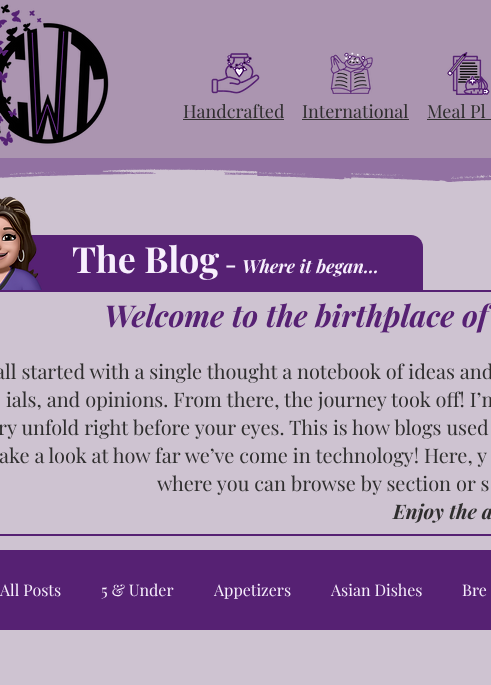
<svg xmlns="http://www.w3.org/2000/svg" xmlns:xlink="http://www.w3.org/1999/xlink" width="491" height="685" viewBox="0 0 491 685">
<style>
.cls-1{font:18px 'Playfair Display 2';fill:#2f2e2e}
.cls-2{font:bold 36px Playfair Display;fill:#f7effd}
.cls-3{font:bold 24px Playfair Display;fill:#f7effd}
.cls-4{font:italic bold 18px Playfair Display;fill:#f7effd}
.cls-5{font:italic bold 30px Playfair Display;fill:#562173}
.cls-6{font:20px Playfair Display;fill:#2f2e2e}
.cls-7{font:italic bold 20px Playfair Display;fill:#2f2e2e}
.cls-8{font:16px Playfair Display;fill:#f7effd}
</style>
<rect width="100%" height="100%" fill="#cec3d1"/>
<rect fill="#ab95b0" x="0" y="0" width="491" height="158"/>
<image xlink:href="image0.png" x="0" y="4" width="109" height="142"/>
<image xlink:href="image1.png" x="211" y="53" width="49" height="41"/>
<image xlink:href="image2.png" x="330" y="52" width="43" height="42"/>
<image xlink:href="image3.png" x="447" y="52" width="43" height="43"/>
<rect fill="#2f2e2e" x="183" y="119" width="101" height="1"/>
<rect fill="#2f2e2e" x="302" y="119" width="107" height="1"/>
<rect fill="#2f2e2e" x="427" y="119" width="64" height="1"/>
<image xlink:href="image4.png" x="0" y="158" width="491" height="24"/>
<path fill="#562173" d="M0 235H411C417.5 235 423 240.5 423 247V290H0Z"/>
<image xlink:href="image5.png" x="0" y="196" width="42" height="94"/>
<rect fill="none" stroke="#562173" stroke-width="2" x="-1" y="291" width="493" height="244"/>
<rect fill="#562173" x="0" y="550" width="491" height="80"/>
<text class="cls-1" x="183" y="118">Handcrafted</text>
<text class="cls-1" x="302" y="118">International</text>
<text class="cls-1" x="427" y="118">Meal Pl</text>
<text class="cls-2" x="72" y="273">The Blog</text>
<text class="cls-3" x="225" y="273">-</text>
<text class="cls-4" x="242" y="273">Where it began...</text>
<text class="cls-5" x="104" y="327">Welcome to the birthplace of</text>
<text class="cls-6" x="-5" y="379">all started with a single thought a notebook of ideas and</text>
<text class="cls-6" x="6" y="407">ials, and opinions. From there, the journey took off! I’m</text>
<text class="cls-6" x="-2" y="435">ry unfold right before your eyes. This is how blogs used</text>
<text class="cls-6" x="-1" y="463">ake a look at how far we’ve come in technology! Here, y</text>
<text class="cls-6" x="157" y="491">where you can browse by section or s</text>
<text class="cls-7" x="393" y="519">Enjoy the a</text>
<text class="cls-8" x="0" y="596">All Posts</text>
<text class="cls-8" x="101" y="596">5 &amp; Under</text>
<text class="cls-8" x="214" y="596">Appetizers</text>
<text class="cls-8" x="331" y="596">Asian Dishes</text>
<text class="cls-8" x="462" y="596">Bre</text>
</svg>
